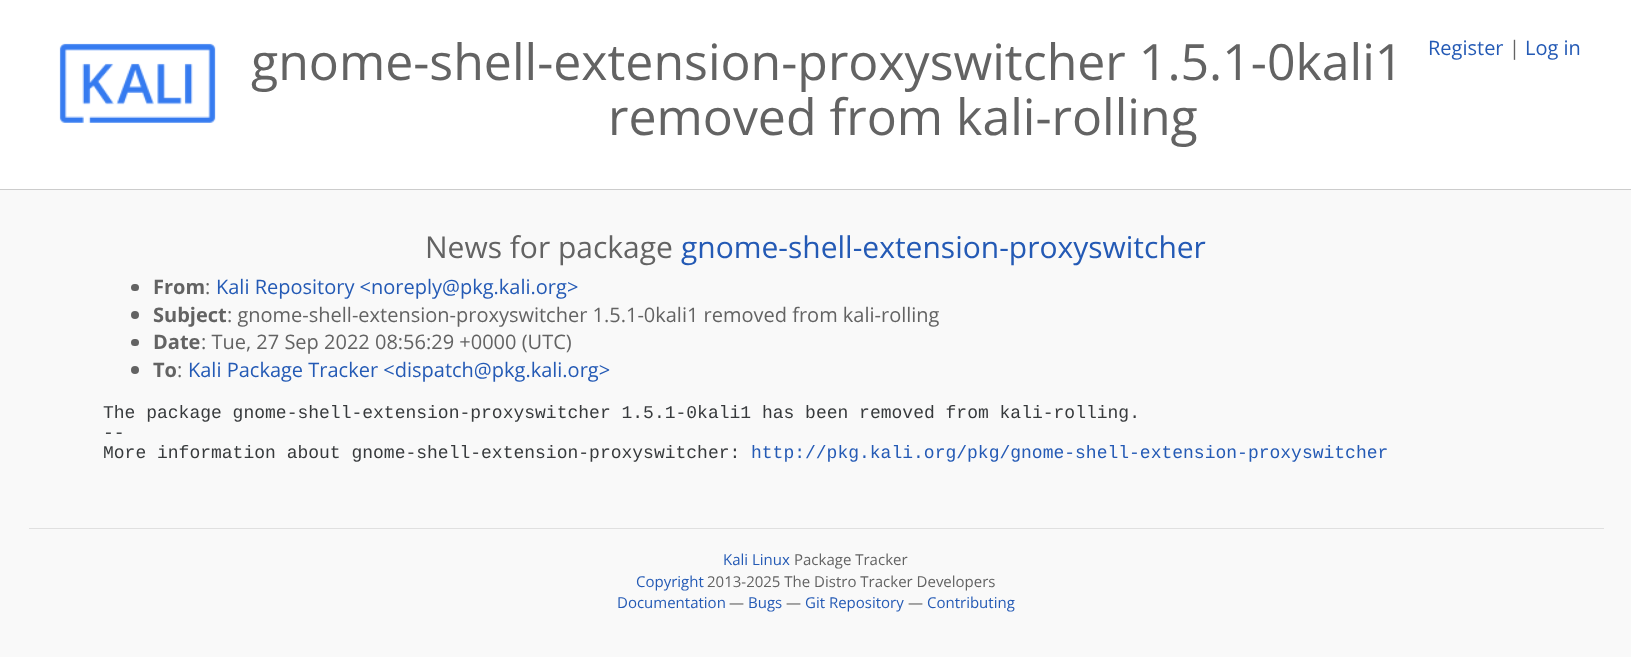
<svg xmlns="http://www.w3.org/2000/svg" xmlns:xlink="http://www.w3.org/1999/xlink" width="1631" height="657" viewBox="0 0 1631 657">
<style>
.cls-1{font:50px Open Sans;fill:#636363}
.cls-2{font:20px Open Sans;fill:#245ab5}
.cls-3{font:20px Open Sans;fill:#636363}
.cls-4{font:30px Open Sans;fill:#636363}
.cls-5{font:30px Open Sans;fill:#245ab5}
.cls-6{font:bold 20px Open Sans;fill:#636363}
.cls-7{font:18px Liberation Mono;fill:#373a3c}
.cls-8{font:18px Liberation Mono;fill:#245ab5}
.cls-9{font:15px Open Sans;fill:#245ab5}
.cls-10{font:15px Open Sans;fill:#636363}
</style>
<rect width="100%" height="100%" fill="#f9f9f9"/>
<rect fill="#ffffff" x="0" y="0" width="1631" height="189"/>
<rect fill="#cccccc" x="0" y="189" width="1631" height="1"/>
<image xlink:href="image0.png" x="59" y="43" width="157" height="80"/>
<rect fill="#636363" x="131" y="284" width="8" height="7" rx="3.5"/>
<circle fill="#636363" cx="135" cy="315" r="4"/>
<rect fill="#636363" x="131" y="339" width="8" height="7" rx="3.5"/>
<circle fill="#636363" cx="135" cy="370" r="4"/>
<rect fill="#e0e0e0" x="29" y="528" width="1575" height="1"/>
<text class="cls-1" x="251" y="80">gnome-shell-extension-proxyswitcher 1.5.1-0kali1</text>
<text class="cls-1" x="608" y="135">removed from kali-rolling</text>
<text class="cls-2" x="1428" y="55">Register</text>
<text class="cls-3" x="1509" y="55">|</text>
<text class="cls-2" x="1525" y="55">Log in</text>
<text class="cls-4" x="425" y="258">News for package</text>
<text class="cls-5" x="681" y="258">gnome-shell-extension-proxyswitcher</text>
<text class="cls-6" x="153" y="294">From</text>
<text class="cls-3" x="205" y="294">:</text>
<text class="cls-2" x="216" y="294">Kali Repository &lt;noreply@pkg.kali.org&gt;</text>
<text class="cls-6" x="153" y="322">Subject</text>
<text class="cls-3" x="227" y="322">: gnome-shell-extension-proxyswitcher 1.5.1-0kali1 removed from kali-rolling</text>
<text class="cls-6" x="153" y="349">Date</text>
<text class="cls-3" x="201" y="349">: Tue, 27 Sep 2022 08:56:29 +0000 (UTC)</text>
<text class="cls-6" x="153" y="377">To</text>
<text class="cls-3" x="177" y="377">:</text>
<text class="cls-2" x="188" y="377">Kali Package Tracker &lt;dispatch@pkg.kali.org&gt;</text>
<text class="cls-7"><tspan x="103" y="418">The package gnome-shell-extension-proxyswitcher 1.5.1-0kali1 has been removed from kali-rolling.</tspan><tspan x="103" y="438">--</tspan><tspan x="103" y="458">More information about gnome-shell-extension-proxyswitcher:</tspan></text>
<text class="cls-8" x="751" y="458">http://pkg.kali.org/pkg/gnome-shell-extension-proxyswitcher</text>
<text class="cls-9" x="723" y="565">Kali Linux</text>
<text class="cls-10" x="794" y="565">Package Tracker</text>
<text class="cls-9" x="636" y="587">Copyright</text>
<text class="cls-10" x="707" y="587">2013-2025 The Distro Tracker Developers</text>
<text class="cls-9" x="617" y="608">Documentation</text>
<text class="cls-10" x="729" y="608">—</text>
<text class="cls-9" x="748" y="608">Bugs</text>
<text class="cls-10" x="786" y="608">—</text>
<text class="cls-9" x="805" y="608">Git Repository</text>
<text class="cls-10" x="908" y="608">—</text>
<text class="cls-9" x="927" y="608">Contributing</text>
</svg>
